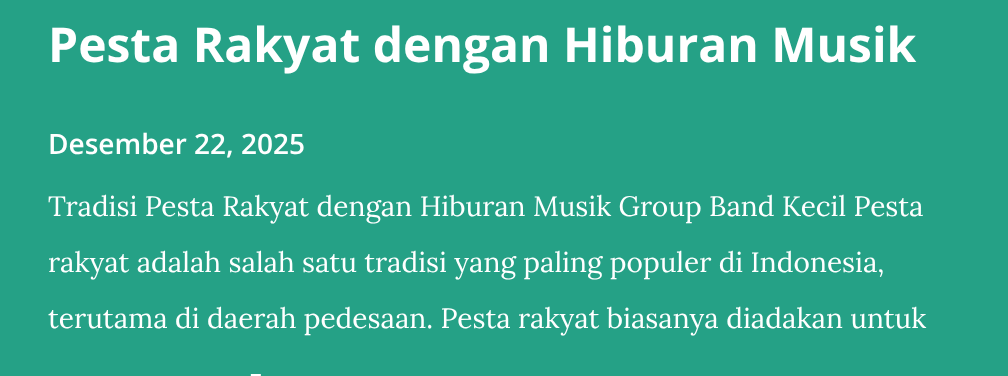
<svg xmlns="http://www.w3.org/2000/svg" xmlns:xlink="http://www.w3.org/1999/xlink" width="1008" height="376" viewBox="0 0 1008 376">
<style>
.cls-1{font:bold 48px Open Sans;fill:#ffffff}
.cls-2{font:600 28px Open Sans;fill:#ffffff}
.cls-3{font:28px Lora;fill:#ffffff}
</style>
<rect width="100%" height="100%" fill="#25a186"/>
<text class="cls-1" x="48" y="62">Pesta Rakyat dengan Hiburan Musik</text>
<text class="cls-2" x="48" y="154">Desember 22, 2025</text>
<text class="cls-3" x="48" y="216">Tradisi Pesta Rakyat dengan Hiburan Musik Group Band Kecil Pesta</text>
<text class="cls-3" x="48" y="272">rakyat adalah salah satu tradisi yang paling populer di Indonesia,</text>
<text class="cls-3" x="48" y="328">terutama di daerah pedesaan. Pesta rakyat biasanya diadakan untuk</text>
<text class="cls-3" x="249" y="384">-</text>
</svg>
